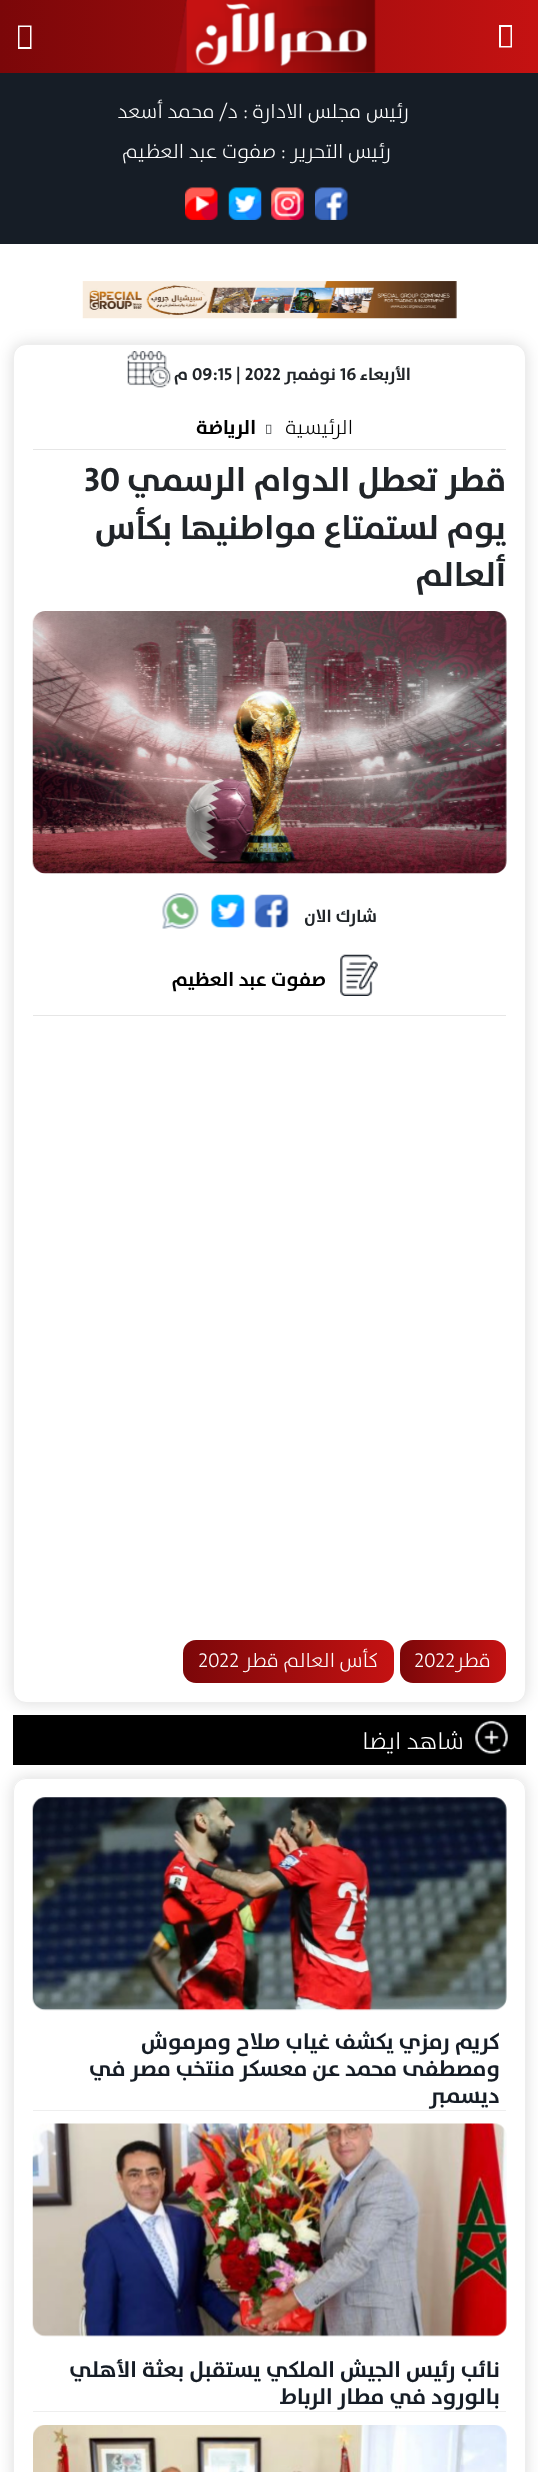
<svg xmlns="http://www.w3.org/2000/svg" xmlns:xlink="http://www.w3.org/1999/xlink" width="538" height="2472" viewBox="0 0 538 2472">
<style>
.cls-1{font:300 20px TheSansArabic;direction:rtl;fill:#ffffff}
.cls-2{font:bold 17.5px TheSansArabic;direction:rtl;fill:#212529}
.cls-3{font:bold 17.5px TheSansArabic;fill:#212529}
.cls-4{font:300 20px TheSansArabic;direction:rtl;fill:#000000}
.cls-5{font:bold 20px TheSansArabic;direction:rtl;fill:#000000}
.cls-6{font:bold 34px TheSansArabic;direction:rtl;fill:#212529}
.cls-7{font:bold 34px TheSansArabic;fill:#212529}
.cls-8{font:300 20px TheSansArabic;fill:#ffffff}
.cls-9{font:300 23.75px TheSansArabic;direction:rtl;fill:#ffffff}
.cls-10{font:bold 22.5px TheSansArabic;direction:rtl;fill:#161d26}
</style>
<defs>
<linearGradient id="g1" gradientUnits="userSpaceOnUse" x1="0" y1="36" x2="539" y2="36"><stop offset="0" stop-color="#7b0709"/><stop offset="1" stop-color="#c51212"/></linearGradient>
<linearGradient id="g2" gradientUnits="userSpaceOnUse" x1="400" y1="1661" x2="506" y2="1661"><stop offset="0" stop-color="#7b0709"/><stop offset="1" stop-color="#c51212"/></linearGradient>
<linearGradient id="g3" gradientUnits="userSpaceOnUse" x1="183" y1="1661" x2="394" y2="1661"><stop offset="0" stop-color="#7b0709"/><stop offset="1" stop-color="#c51212"/></linearGradient>
<clipPath id="clip1"><path d="M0 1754H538V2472H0ZM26 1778H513C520 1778 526 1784 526 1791V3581C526 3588 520 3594 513 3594H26C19 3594 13 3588 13 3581V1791C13 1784 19 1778 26 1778Z" clip-rule="evenodd"/></clipPath>
</defs>
<rect width="100%" height="100%" fill="#ffffff"/>
<rect fill="#161d26" x="0" y="73" width="538" height="171"/>
<rect fill="url(#g1)" x="0" y="0" width="538" height="73"/>
<path fill="#ffffff" d="M499 47.5V25H512V47.5ZM501 46H510.5V27H501Z"/>
<image xlink:href="image0.png" x="174" y="0" width="202" height="73"/>
<path fill="#ffffff" d="M18 49V25.5H31.5V49ZM19.5 47H30V27H19.5Z"/>
<image xlink:href="image1.png" x="315" y="187" width="33" height="33"/>
<image xlink:href="image2.png" x="271" y="187" width="33" height="33"/>
<image xlink:href="image3.png" x="228" y="187" width="34" height="33"/>
<image xlink:href="image4.png" x="185" y="187" width="33" height="33"/>
<image xlink:href="image5.png" x="82" y="281" width="375" height="38"/>
<rect fill="#000000" fill-opacity="0.14" filter="blur(7.5px)" x="13" y="344" width="513" height="1359" rx="13"/>
<rect fill="#ffffff" stroke="#eeeeee" x="13.5" y="344.5" width="512" height="1358" rx="12.5"/>
<image xlink:href="image6.png" x="127" y="351" width="44" height="37"/>
<image xlink:href="image7.png" x="266" y="424" width="6" height="10"/>
<rect fill="#e6e6e6" x="33" y="449" width="473" height="1"/>
<image xlink:href="image8.png" x="32" y="611" width="475" height="263"/>
<image xlink:href="image9.png" x="254" y="894" width="35" height="34"/>
<image xlink:href="image10.png" x="211" y="894" width="34" height="34"/>
<image xlink:href="image11.png" x="162" y="893" width="37" height="36"/>
<image xlink:href="image12.png" x="340" y="954" width="38" height="42"/>
<rect fill="#e6e6e6" x="33" y="1015" width="473" height="1"/>
<rect fill="url(#g2)" x="400" y="1640" width="106" height="43" rx="13"/>
<rect fill="url(#g3)" x="183" y="1640" width="211" height="43" rx="13"/>
<rect fill="#000000" x="13" y="1715" width="513" height="50"/>
<image xlink:href="image13.png" x="475" y="1720" width="33" height="34"/>
<g clip-path="url(#clip1)">
<rect fill="#000000" fill-opacity="0.14" filter="blur(7.5px)" x="13" y="1778" width="513" height="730" rx="13"/>
</g>
<rect fill="none" stroke="#eeeeee" x="13.5" y="1778.5" width="512" height="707" rx="12.5"/>
<rect fill="#eeeeee" x="33" y="2110" width="473" height="1"/>
<image xlink:href="image14.png" x="32" y="1797" width="475" height="214"/>
<rect fill="#eeeeee" x="33" y="2411" width="473" height="1"/>
<image xlink:href="image15.png" x="32" y="2123" width="475" height="214"/>
<image xlink:href="image16.png" x="33" y="2425" width="474" height="47"/>
<text class="cls-1" x="409" y="118">رئيس مجلس الادارة : د/ محمد أسعد</text>
<text class="cls-1" x="391" y="158">رئيس التحرير : صفوت عبد العظيم</text>
<text class="cls-2" x="411" y="380">الأربعاء</text>
<text class="cls-3" x="340" y="380">16</text>
<text class="cls-2" x="336" y="380">نوفمبر</text>
<text class="cls-3" x="192" y="380">09:15 | 2022</text>
<text class="cls-2" x="188" y="380">م</text>
<text class="cls-4" x="353" y="434">الرئيسية</text>
<text class="cls-5" x="256" y="434">الرياضة</text>
<text class="cls-6" x="506" y="491">قطر تعطل الدوام الرسمي</text>
<text class="cls-7" x="84" y="491">30</text>
<text class="cls-6"><tspan x="506" y="539">يوم لستمتاع مواطنيها بكأس</tspan><tspan x="506" y="586">ألعالم</tspan></text>
<text class="cls-2" x="377" y="922">شارك الان</text>
<text class="cls-5" x="326" y="986">صفوت عبد العظيم</text>
<text class="cls-1" x="491" y="1667">قطر</text>
<text class="cls-8" x="414" y="1667">2022</text>
<text class="cls-1" x="378" y="1667">كأس العالم قطر</text>
<text class="cls-8" x="198" y="1667">2022</text>
<text class="cls-9" x="464" y="1749">شاهد ايضا</text>
<text class="cls-10"><tspan x="500" y="2049">كريم رمزي يكشف غياب صلاح ومرموش</tspan><tspan x="500" y="2076">ومصطفى محمد عن معسكر منتخب مصر في</tspan><tspan x="500" y="2103">ديسمبر</tspan></text>
<text class="cls-10"><tspan x="500" y="2377">نائب رئيس الجيش الملكي يستقبل بعثة الأهلي</tspan><tspan x="500" y="2404">بالورود في مطار الرباط</tspan></text>
</svg>
